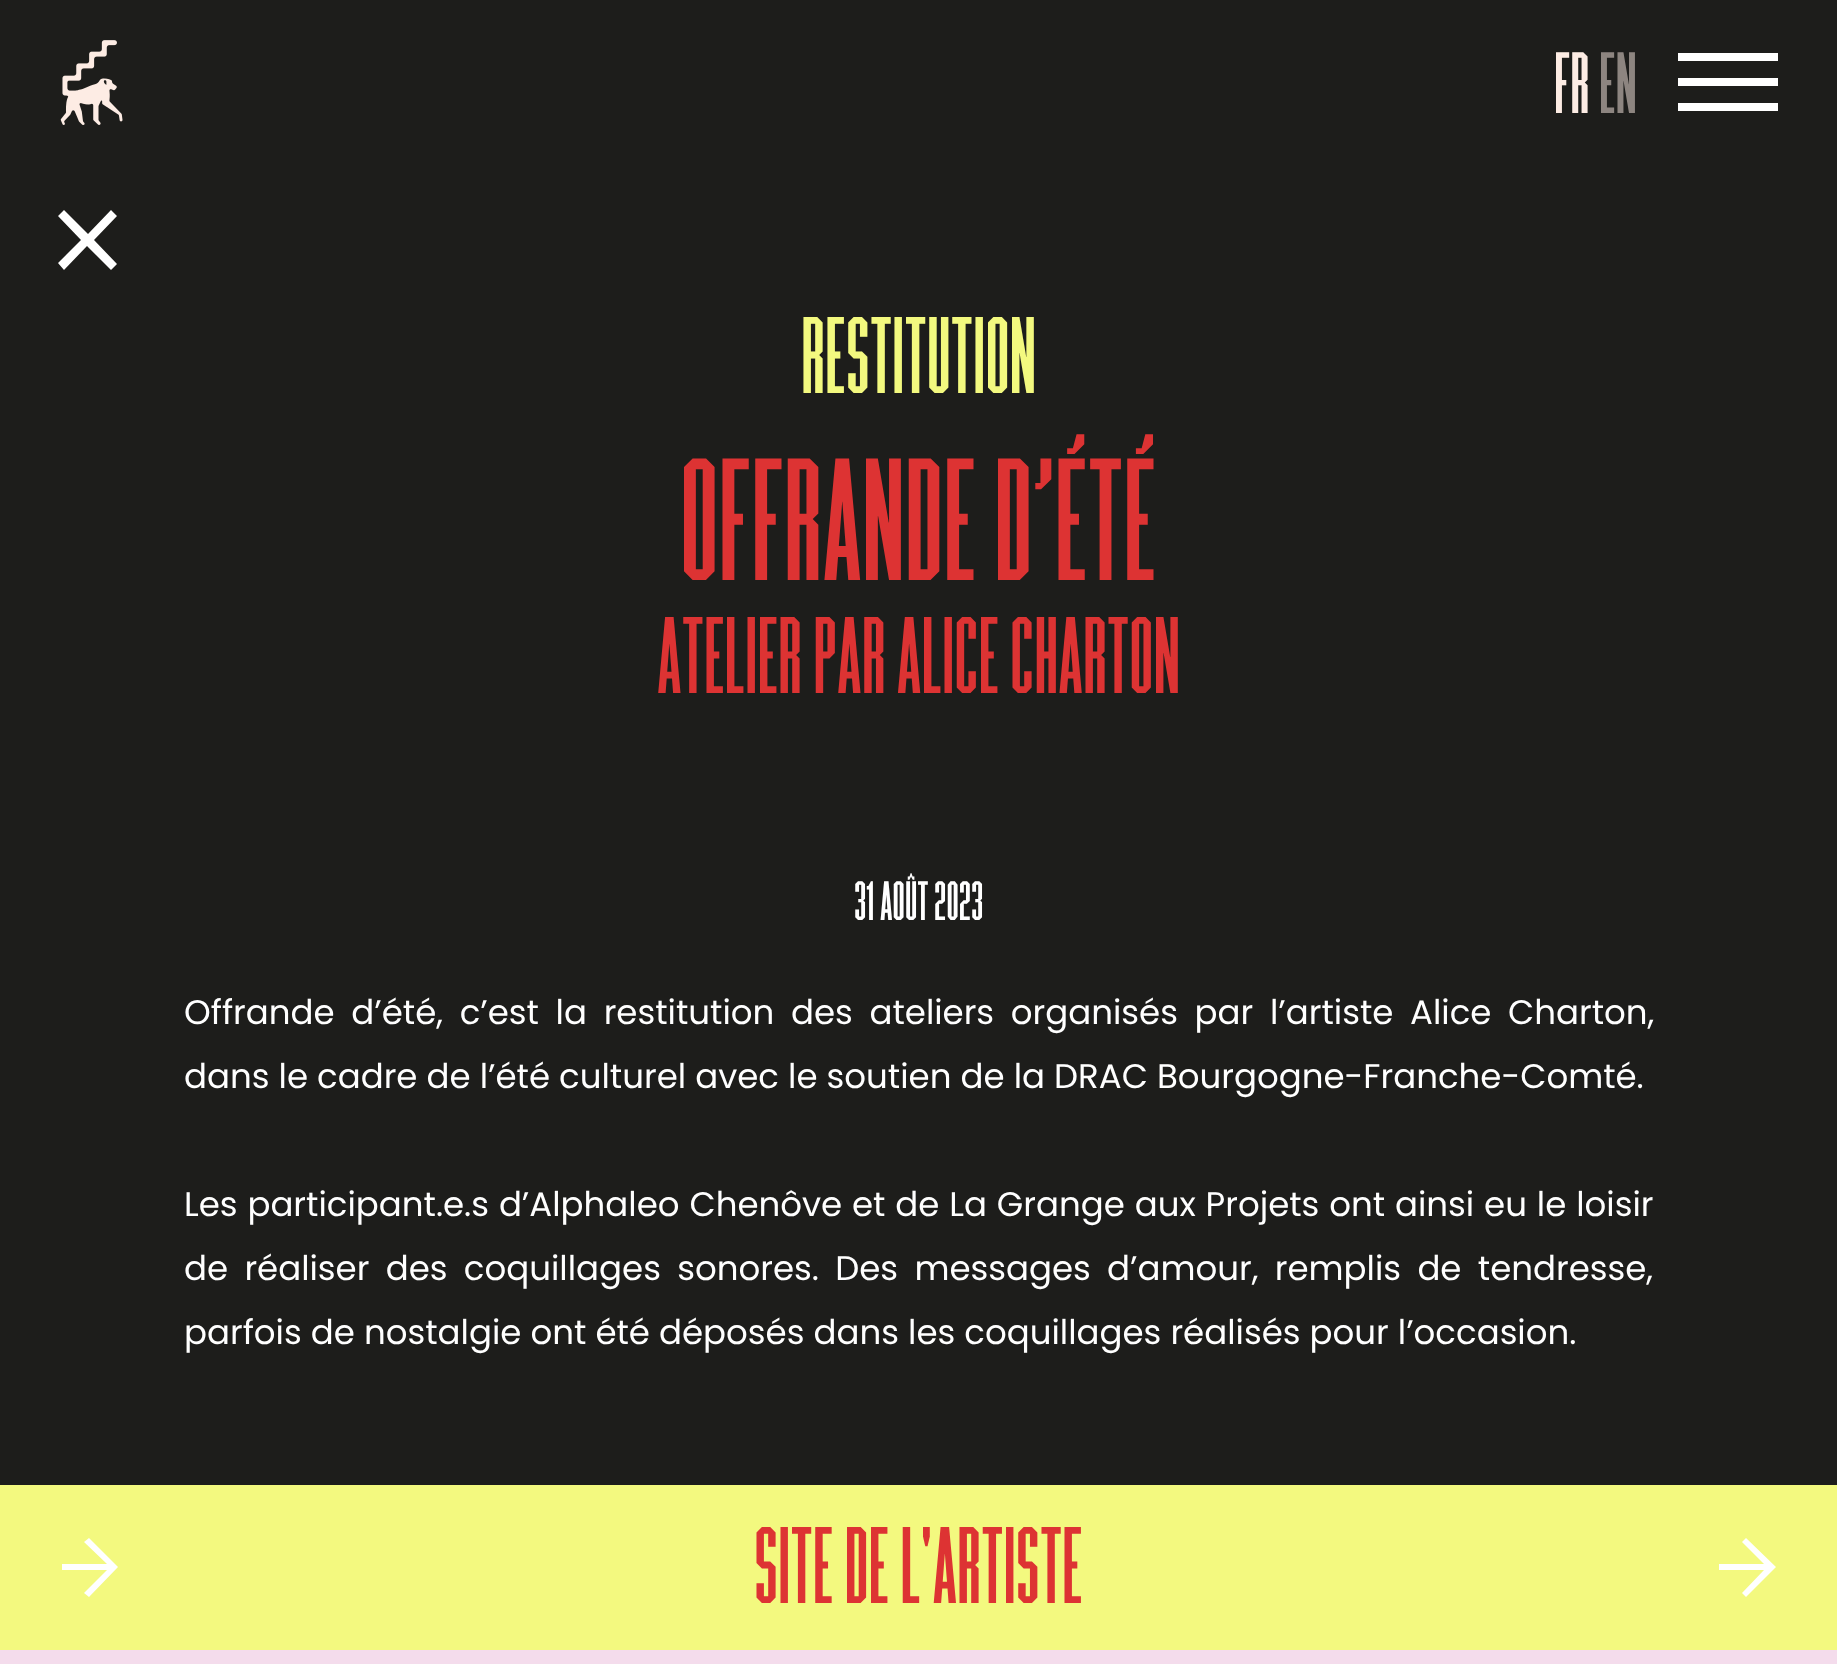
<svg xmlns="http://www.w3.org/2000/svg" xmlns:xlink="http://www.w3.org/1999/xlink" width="1837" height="1664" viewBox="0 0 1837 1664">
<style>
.cls-1{font:80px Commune;fill:#fdece4}
.cls-2{font:80px Commune;fill:#8d8580}
.cls-3{font:100px Commune;fill:#f3f97f}
.cls-4{font:160px Commune;fill:#dd3333}
.cls-5{font:100px Commune;fill:#dd3333}
.cls-6{font:51px Commune;fill:#ffffff}
.cls-7{font:34px Poppins;fill:#ffffff}
</style>
<rect width="100%" height="100%" fill="#1d1d1b"/>
<image xlink:href="image0.png" x="60" y="40" width="63" height="85"/>
<rect fill="#ffffff" x="1678" y="53" width="100" height="8"/>
<rect fill="#ffffff" x="1678" y="78" width="100" height="8"/>
<rect fill="#ffffff" x="1678" y="103" width="100" height="8"/>
<path fill="#ffffff" d="M117 264L94 240L117 216L111 210L88 234L64 210L58 216L81 240L58 263L64 270L87 246L111 270Z"/>
<rect fill="#f3f97f" x="0" y="1485" width="1837" height="165"/>
<path fill="#ffffff" d="M1746 1538L1742 1542L1764 1564H1719V1570H1764L1742 1593L1746 1597L1776 1567Z"/>
<path fill="#ffffff" d="M89 1538L84 1542L107 1564H62V1570H107L84 1593L89 1597L118 1567Z"/>
<rect fill="#f4dcec" x="0" y="1650" width="1837" height="14"/>
<text class="cls-1" x="1554" y="113">FR</text>
<text class="cls-2" x="1599" y="113">EN</text>
<text class="cls-3" x="801" y="393">RESTITUTION</text>
<text class="cls-4" x="680" y="580">OFFRANDE D’ÉTÉ</text>
<text class="cls-5" x="657" y="693">ATELIER PAR ALICE CHARTON</text>
<text class="cls-6" x="854" y="920">31 AOÛT 2023</text>
<text class="cls-7"><tspan x="184" y="1024" word-spacing="7.6">Offrande d’été, c’est la restitution des ateliers organisés par l’artiste Alice Charton,</tspan><tspan x="184" y="1088">dans le cadre de l’été culturel avec le soutien de la DRAC Bourgogne-Franche-Comté.</tspan></text>
<text class="cls-7"><tspan x="184" y="1216" word-spacing="0.8">Les participant.e.s d’Alphaleo Chenôve et de La Grange aux Projets ont ainsi eu le loisir</tspan><tspan x="184" y="1280" word-spacing="7.25">de réaliser des coquillages sonores. Des messages d’amour, remplis de tendresse,</tspan><tspan x="184" y="1344">parfois de nostalgie ont été déposés dans les coquillages réalisés pour l’occasion.</tspan></text>
<text class="cls-5" x="754" y="1603">SITE DE L'ARTISTE</text>
</svg>
